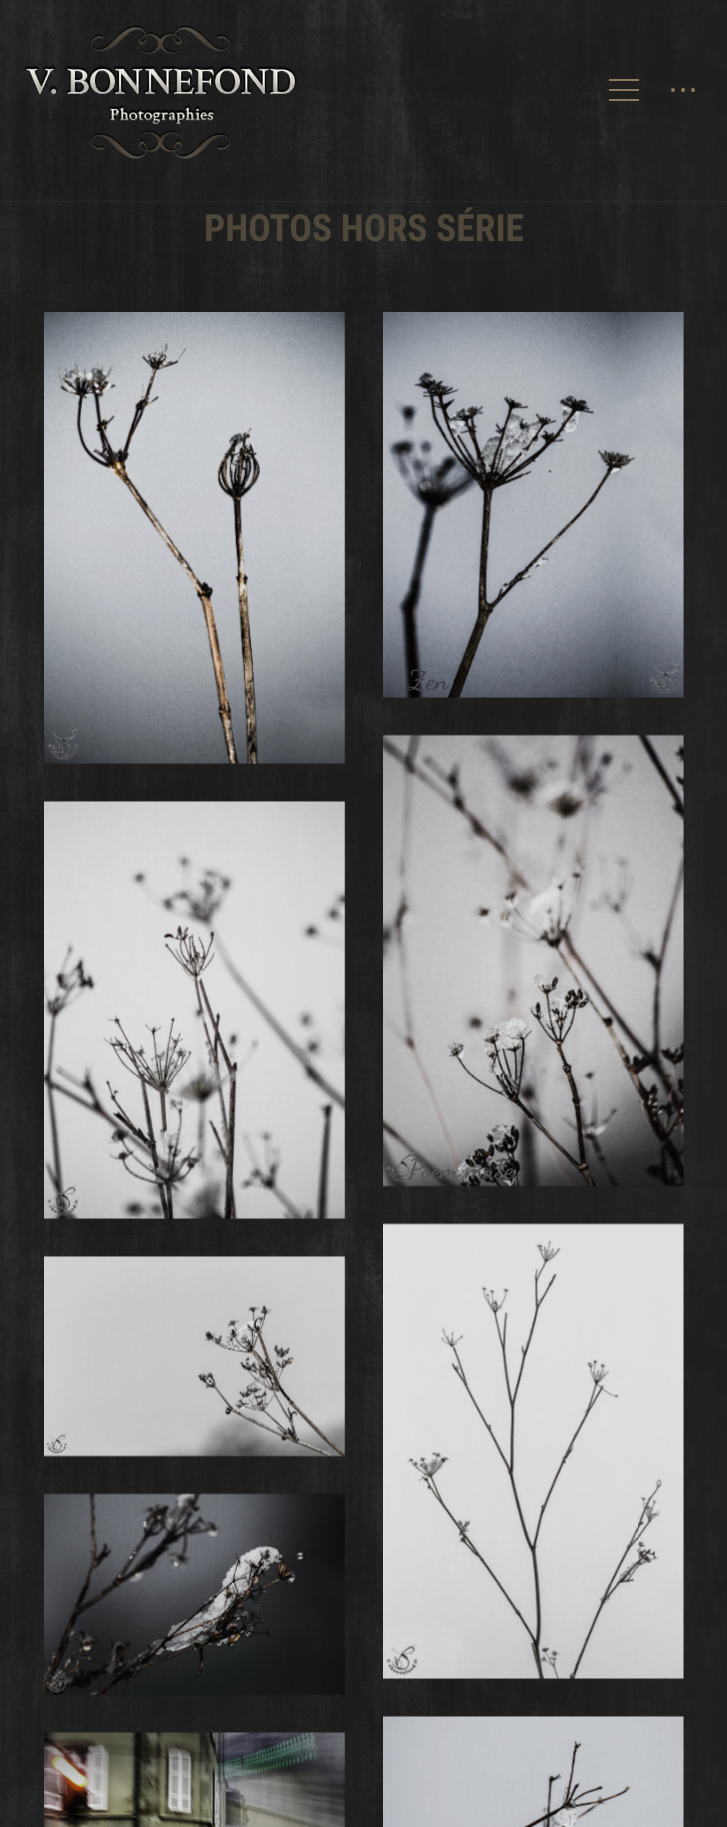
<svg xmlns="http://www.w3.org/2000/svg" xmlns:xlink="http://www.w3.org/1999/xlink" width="727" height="1827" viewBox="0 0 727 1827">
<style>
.cls-1{font:bold 37.5px Roboto Condensed;fill:#50473b}
.cls-2{font:bold 27px Dancing Script;fill:#3f4149}
.cls-3{font:bold 27px Dancing Script;fill:#535252}
</style>
<rect width="100%" height="100%" fill="#212121"/>
<image xlink:href="image0.png" x="0" y="0" width="727" height="1827"/>
<image xlink:href="image1.png" x="25" y="25" width="272" height="134"/>
<rect fill="#8e795e" x="609" y="79" width="30" height="2"/>
<rect fill="#8e795e" x="609" y="89" width="30" height="2"/>
<rect fill="#8e795e" x="609" y="99" width="30" height="2"/>
<circle fill="#8e795e" cx="673" cy="90" r="2"/>
<circle fill="#8e795e" cx="683" cy="90" r="2"/>
<path fill="#8e795e" d="M681.5 89.5L683 87.5L685 89.5L683 91Z"/>
<circle fill="#8e795e" cx="693" cy="90" r="2"/>
<rect fill="#8e795e" fill-opacity="0.13" x="0" y="201" width="727" height="1"/>
<image xlink:href="image2.png" x="44" y="312" width="302" height="453"/>
<image xlink:href="image3.png" x="383" y="312" width="301" height="386"/>
<image xlink:href="image4.png" x="44" y="800" width="302" height="420"/>
<image xlink:href="image5.png" x="383" y="734" width="301" height="453"/>
<image xlink:href="image6.png" x="44" y="1255" width="302" height="202"/>
<image xlink:href="image7.png" x="383" y="1223" width="301" height="457"/>
<image xlink:href="image8.png" x="44" y="1493" width="301" height="203"/>
<image xlink:href="image9.png" x="44" y="1732" width="302" height="95"/>
<image xlink:href="image10.png" x="383" y="1715" width="301" height="112"/>
<text class="cls-1" x="204" y="241">PHOTOS HORS SÉRIE</text>
<text class="cls-2" x="408" y="689">Zen</text>
<text class="cls-3" x="408" y="1178">Poem muse</text>
</svg>
